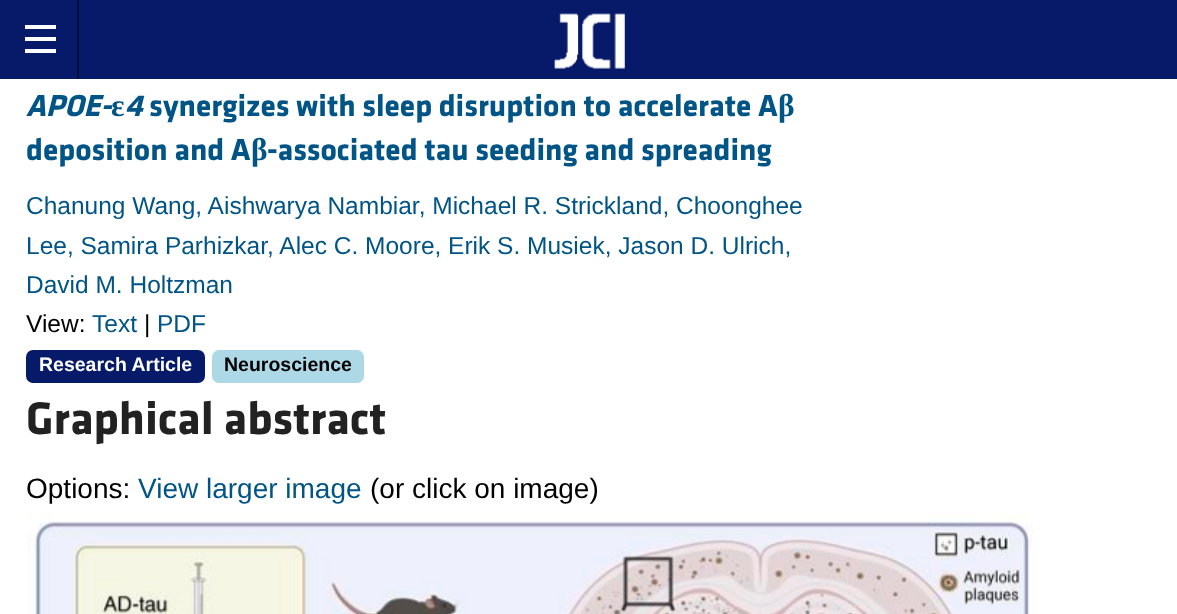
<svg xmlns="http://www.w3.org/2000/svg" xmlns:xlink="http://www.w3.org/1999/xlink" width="1177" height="614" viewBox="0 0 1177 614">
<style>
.cls-1{font:italic bold 31.5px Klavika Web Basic;fill:#015486}
.cls-2{font:bold 31.5px Liberation Serif;fill:#015486}
.cls-3{font:bold 31.5px Klavika Web Basic;fill:#015486}
.cls-4{font:24.5px Liberation Sans;fill:#015486}
.cls-5{font:24.5px Liberation Sans;fill:#000000}
.cls-6{font:bold 19.5px Liberation Sans;fill:#ffffff}
.cls-7{font:bold 19.5px Liberation Sans;fill:#000000}
.cls-8{font:bold 47.25px Klavika Web Basic;fill:#222222}
.cls-9{font:28px Liberation Sans;fill:#000000}
.cls-10{font:28px Liberation Sans;fill:#015486}
</style>
<rect width="100%" height="100%" fill="#ffffff"/>
<rect fill="#071a69" x="0" y="0" width="1177" height="79"/>
<rect fill="#040d35" x="77" y="0" width="2" height="79"/>
<rect fill="#ffffff" x="25" y="49" width="31" height="4"/>
<rect fill="#ffffff" x="25" y="37" width="31" height="4"/>
<rect fill="#ffffff" x="25" y="25" width="31" height="4"/>
<image xlink:href="image0.png" x="554" y="13" width="71" height="56"/>
<rect fill="#071a69" x="26" y="350" width="179" height="33" rx="7"/>
<rect fill="#add8e6" x="212" y="350" width="152" height="33" rx="7"/>
<image xlink:href="image1.png" x="27" y="511" width="1013" height="103"/>
<text class="cls-1" x="26" y="116">APOE-</text>
<text class="cls-2" x="111" y="116">ε</text>
<text class="cls-1" x="125" y="116">4</text>
<text class="cls-3" x="149" y="116">synergizes with sleep disruption to accelerate A</text>
<text class="cls-2" x="778" y="116">β</text>
<text class="cls-3" x="26" y="160">deposition and A</text>
<text class="cls-2" x="251" y="160">β</text>
<text class="cls-3" x="267" y="160">-associated tau seeding and spreading</text>
<text class="cls-4"><tspan x="26" y="214">Chanung Wang, Aishwarya Nambiar, Michael R. Strickland, Choonghee</tspan><tspan x="26" y="254">Lee, Samira Parhizkar, Alec C. Moore, Erik S. Musiek, Jason D. Ulrich,</tspan><tspan x="26" y="293">David M. Holtzman</tspan></text>
<text class="cls-5" x="26" y="332">View:</text>
<text class="cls-4" x="92" y="332">Text</text>
<text class="cls-5" x="144" y="332">|</text>
<text class="cls-4" x="157" y="332">PDF</text>
<text class="cls-6" x="39" y="371">Research Article</text>
<text class="cls-7" x="224" y="371">Neuroscience</text>
<text class="cls-8" x="26" y="434">Graphical abstract</text>
<text class="cls-9" x="26" y="498">Options:</text>
<text class="cls-10" x="138" y="498">View larger image</text>
<text class="cls-9" x="370" y="498">(or click on image)</text>
</svg>
